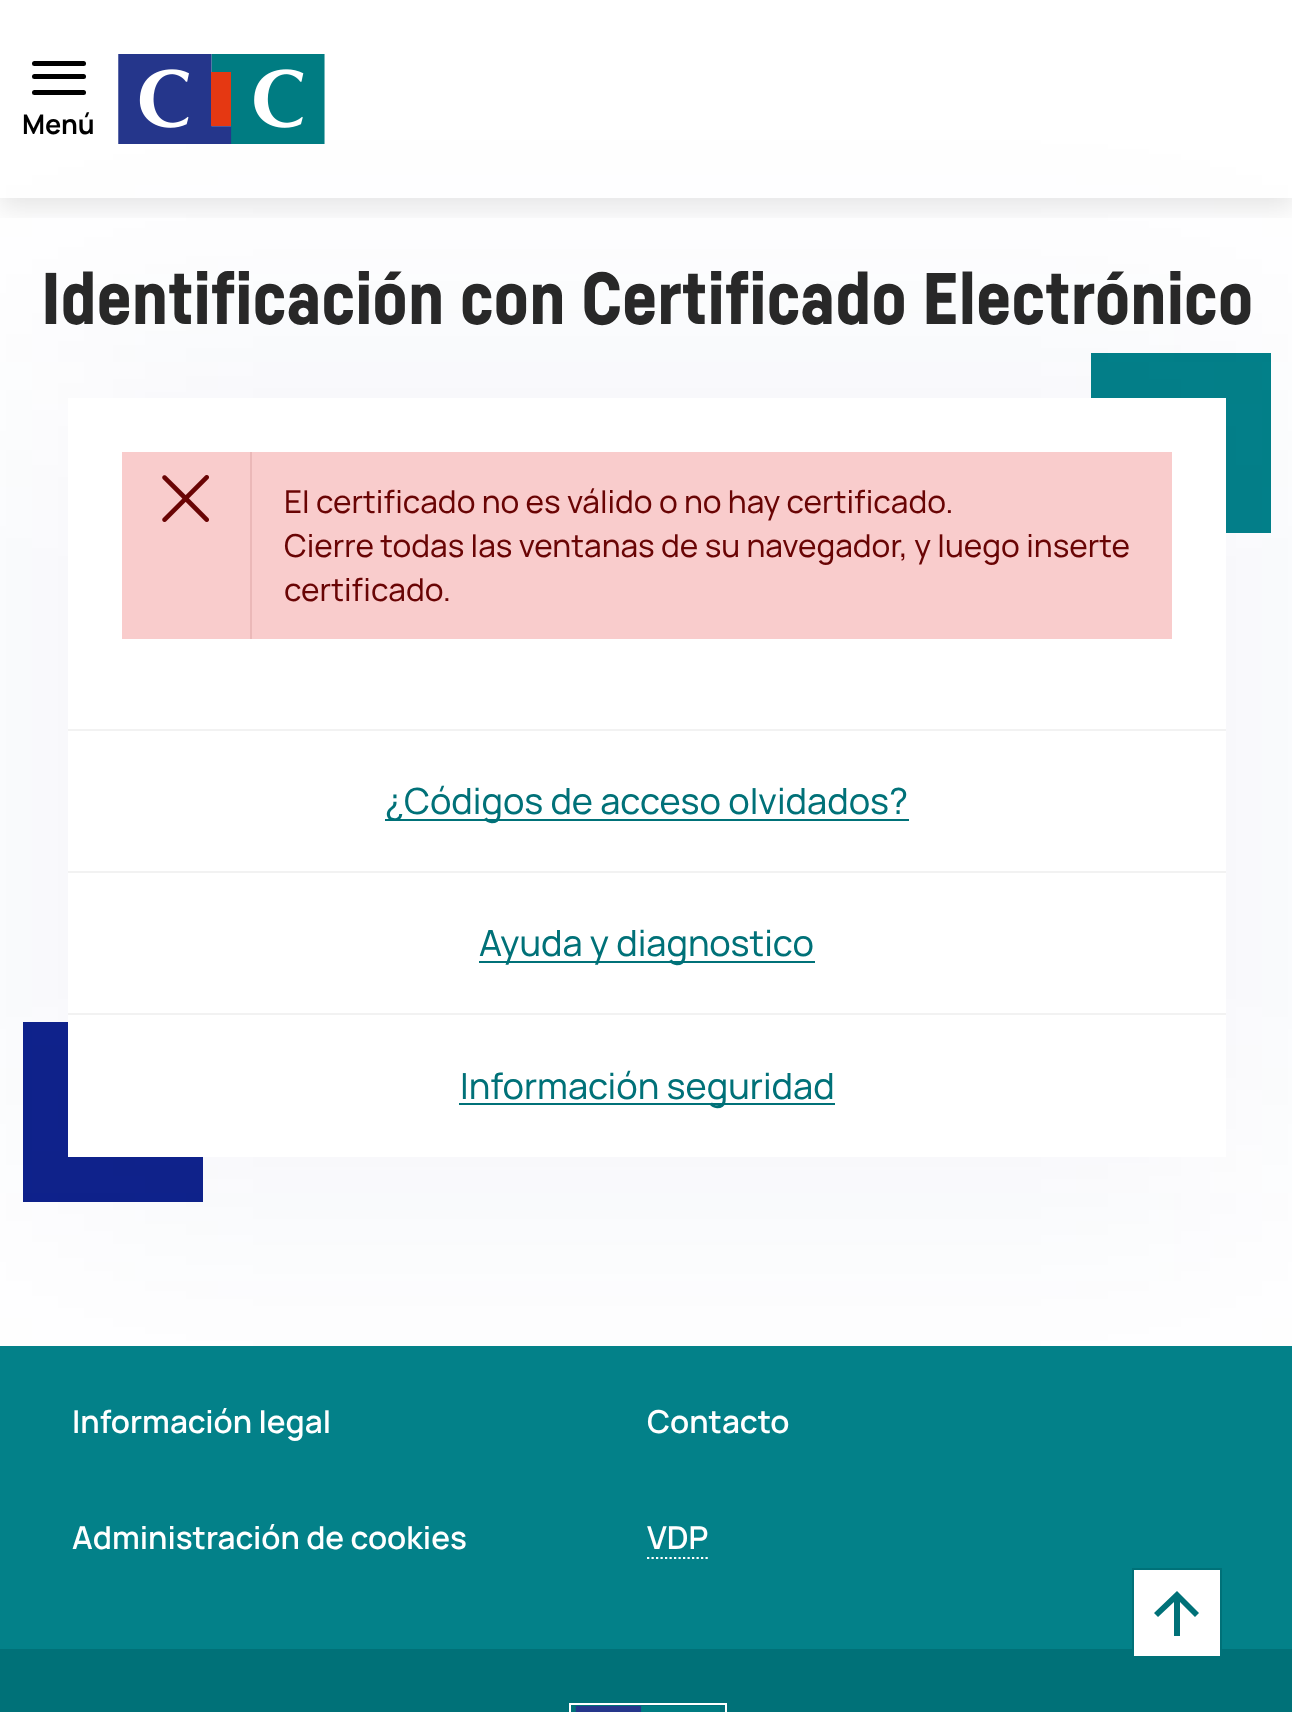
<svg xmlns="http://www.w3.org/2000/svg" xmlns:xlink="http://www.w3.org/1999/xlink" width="1292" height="1712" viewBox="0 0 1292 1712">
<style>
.cls-1{font:bold 27px Manrope;fill:#000000}
.cls-2{font:900 72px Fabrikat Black;fill:#282828}
.cls-3{font:31.5px Manrope;fill:#690404}
.cls-4{font:36px Manrope;fill:#007178}
.cls-5{font:600 31.5px Manrope;fill:#ffffff}
</style>
<defs>
<clipPath id="clip1"><rect x="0" y="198" width="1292" height="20"/></clipPath>
</defs>
<rect width="100%" height="100%" fill="#ffffff"/>
<g clip-path="url(#clip1)">
<rect fill="#000000" fill-opacity="0.1" filter="blur(13.5px)" x="0" y="9" width="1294" height="198"/>
</g>
<rect fill="#038189" x="1091" y="353" width="180" height="180"/>
<rect fill="#0f228b" x="23" y="1022" width="180" height="180"/>
<rect fill="#0f228b" fill-opacity="0.05" filter="blur(133px)" x="32" y="362" width="1230" height="831"/>
<rect fill="#000000" x="32" y="61" width="54" height="5" rx="2.5"/>
<rect fill="#000000" x="32" y="74" width="54" height="5" rx="2.5"/>
<rect fill="#000000" x="32" y="90" width="54" height="5" rx="2.5"/>
<image xlink:href="image0.png" x="118" y="54" width="207" height="90"/>
<rect fill="#ffffff" x="68" y="398" width="1158" height="759"/>
<rect fill="#f9cccc" x="122" y="452" width="1050" height="187"/>
<image xlink:href="image1.png" x="162" y="475" width="47" height="47"/>
<rect fill="#ebb8b8" x="250" y="452" width="2" height="187"/>
<rect fill="#f2f2f2" x="68" y="729" width="1158" height="2"/>
<rect fill="#007178" x="385" y="819" width="524" height="2"/>
<rect fill="#f2f2f2" x="68" y="871" width="1158" height="2"/>
<rect fill="#007178" x="479" y="961" width="336" height="2"/>
<rect fill="#f2f2f2" x="68" y="1013" width="1158" height="2"/>
<rect fill="#007178" x="459" y="1103" width="376" height="2"/>
<rect fill="#038189" x="0" y="1346" width="1292" height="303"/>
<path fill="none" stroke="#ffffff" stroke-width="2.2" stroke-dasharray="2.25 2.25" d="M647 1558H708"/>
<rect fill="#007178" x="0" y="1649" width="1292" height="63"/>
<rect fill="none" stroke="#ffffff" stroke-width="2" x="570" y="1704" width="156" height="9"/>
<image xlink:href="image2.png" x="575" y="1706" width="145" height="6"/>
<rect fill="#ffffff" stroke="#007178" stroke-width="2" x="1133" y="1569" width="88" height="88"/>
<path fill="#007178" d="M1154 1613L1158 1617L1174 1602V1636H1180V1602L1195 1617L1199 1613L1177 1591Z"/>
<text class="cls-1" x="22" y="134">Menú</text>
<text class="cls-2" x="41" y="324">Identificación con Certificado Electrónico</text>
<text class="cls-3"><tspan x="284" y="513">El certificado no es válido o no hay certificado.</tspan><tspan x="284" y="557">Cierre todas las ventanas de su navegador, y luego inserte</tspan><tspan x="284" y="601">certificado.</tspan></text>
<text class="cls-4" x="385" y="814">¿Códigos de acceso olvidados?</text>
<text class="cls-4" x="479" y="956">Ayuda y diagnostico</text>
<text class="cls-4" x="460" y="1099">Información seguridad</text>
<text class="cls-5" x="72" y="1433">Información legal</text>
<text class="cls-5" x="647" y="1433">Contacto</text>
<text class="cls-5" x="72" y="1549">Administración de cookies</text>
<text class="cls-5" x="647" y="1549">VDP</text>
</svg>
